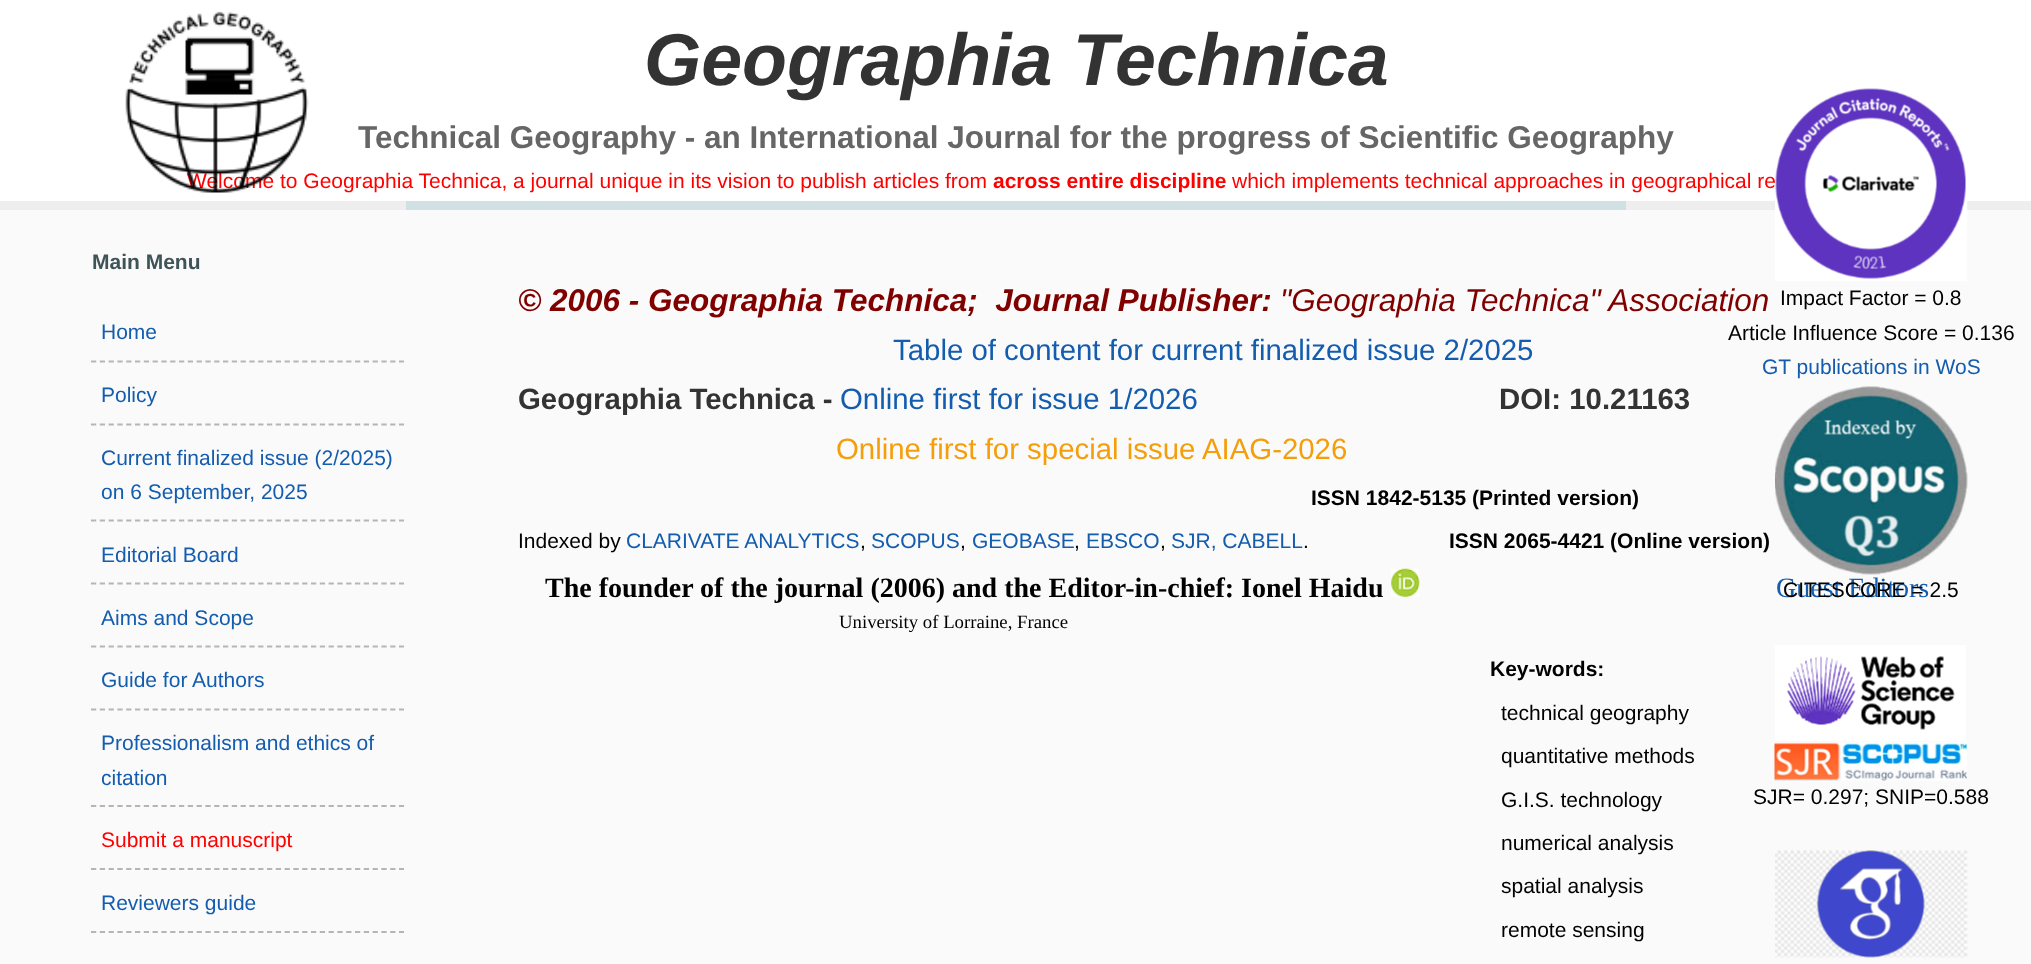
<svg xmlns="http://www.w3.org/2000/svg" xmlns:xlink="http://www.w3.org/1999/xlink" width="2031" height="964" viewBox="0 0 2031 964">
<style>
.cls-1{font:italic bold 73.5px Liberation Sans;fill:#333333}
.cls-2{font:bold 31.5px Liberation Sans;fill:#666666}
.cls-3{font:21px Liberation Sans;fill:#ff0000}
.cls-4{font:bold 21px Liberation Sans;fill:#ff0000}
.cls-5{font:bold 21px Liberation Sans;fill:#3e5458}
.cls-6{font:21px Liberation Sans;fill:#135cae}
.cls-7{font:italic bold 31.5px Liberation Sans;fill:#800000}
.cls-8{font:italic 31.5px Liberation Sans;fill:#800000}
.cls-9{font:21px Liberation Sans;fill:#000000}
.cls-10{font:29.4px Liberation Sans;fill:#135cae}
.cls-11{font:bold 29.4px Liberation Sans;fill:#333333}
.cls-12{font:29.4px Liberation Sans;fill:#f59e0b}
.cls-13{font:bold 21px Liberation Sans;fill:#000000}
.cls-14{font:bold 28px Liberation Serif;fill:#000000}
.cls-15{font:28px Liberation Serif;fill:#135cae}
.cls-16{font:18.75px Liberation Serif;fill:#000000}
</style>
<rect width="100%" height="100%" fill="#eeeeee"/>
<rect fill="#ffffff" x="0" y="0" width="2031" height="201"/>
<rect fill="#d0e0e3" x="406" y="201" width="1220" height="9"/>
<rect fill="#fafafa" x="0" y="210" width="2031" height="754"/>
<path fill="none" stroke="#b5b5b5" stroke-width="1.8" stroke-dasharray="5.25 3.55" d="M91 361.5H404"/>
<path fill="none" stroke="#b5b5b5" stroke-width="1.8" stroke-dasharray="5.25 3.55" d="M91 424.5H404"/>
<path fill="none" stroke="#b5b5b5" stroke-width="1.8" stroke-dasharray="5.25 3.55" d="M91 520.5H404"/>
<path fill="none" stroke="#b5b5b5" stroke-width="1.8" stroke-dasharray="5.25 3.55" d="M91 583.5H404"/>
<path fill="none" stroke="#b5b5b5" stroke-width="1.8" stroke-dasharray="5.25 3.55" d="M91 646.5H404"/>
<path fill="none" stroke="#b5b5b5" stroke-width="1.8" stroke-dasharray="5.25 3.55" d="M91 709.5H404"/>
<path fill="none" stroke="#b5b5b5" stroke-width="1.8" stroke-dasharray="5.25 3.55" d="M91 806H404"/>
<path fill="none" stroke="#b5b5b5" stroke-width="1.8" stroke-dasharray="5.25 3.55" d="M91 869H404"/>
<path fill="none" stroke="#b5b5b5" stroke-width="1.8" stroke-dasharray="5.25 3.55" d="M91 932H404"/>
<image xlink:href="image2.png" x="1775" y="386" width="193" height="189"/>
<image xlink:href="image3.png" x="1775" y="645" width="191" height="96"/>
<image xlink:href="image4.png" x="1774" y="742" width="193" height="39"/>
<image xlink:href="image5.png" x="1775" y="850" width="193" height="108"/>
<image xlink:href="image6.png" x="1391" y="568" width="29" height="29"/>
<text class="cls-1" x="644" y="85">Geographia Technica</text>
<text class="cls-2" x="358" y="148">Technical Geography - an International Journal for the progress of Scientific Geography</text>
<text class="cls-3" x="187" y="188">Welcome to Geographia Technica, a journal unique in its vision to publish articles from</text>
<image xlink:href="image0.png" x="125" y="11" width="184" height="182"/>
<text class="cls-4" x="993" y="188">across entire discipline</text>
<text class="cls-3" x="1232" y="188">which implements technical approaches in geographical re</text>
<text class="cls-5" x="92" y="269">Main Menu</text>
<text class="cls-6" x="101" y="339">Home</text>
<text class="cls-6" x="101" y="402">Policy</text>
<text class="cls-6"><tspan x="101" y="465">Current finalized issue (2/2025)</tspan><tspan x="101" y="499">on 6 September, 2025</tspan></text>
<text class="cls-6" x="101" y="562">Editorial Board</text>
<text class="cls-6" x="101" y="625">Aims and Scope</text>
<text class="cls-6" x="101" y="687">Guide for Authors</text>
<text class="cls-6"><tspan x="101" y="750">Professionalism and ethics of</tspan><tspan x="101" y="785">citation</tspan></text>
<text class="cls-3" x="101" y="847">Submit a manuscript</text>
<text class="cls-6" x="101" y="910">Reviewers guide</text>
<text class="cls-7" xml:space="preserve" x="518" y="311">© 2006 - Geographia Technica;  Journal Publisher:</text>
<text class="cls-8" x="1280" y="311">"Geographia Technica" Association</text>
<image xlink:href="image1.png" x="1775" y="88" width="193" height="193"/>
<text class="cls-9" x="1780" y="305">Impact Factor = 0.8</text>
<text class="cls-9" x="1728" y="340">Article Influence Score = 0.136</text>
<text class="cls-6" x="1762" y="374">GT publications in WoS</text>
<text class="cls-9" x="1753" y="804">SJR= 0.297; SNIP=0.588</text>
<text class="cls-10" x="893" y="360">Table of content for current finalized issue 2/2025</text>
<text class="cls-11" x="518" y="409">Geographia Technica -</text>
<text class="cls-10" x="840" y="409">Online first for issue 1/2026</text>
<text class="cls-11" x="1499" y="409">DOI: 10.21163</text>
<text class="cls-12" x="836" y="459">Online first for special issue AIAG-2026</text>
<text class="cls-13" x="1311" y="505">ISSN 1842-5135 (Printed version)</text>
<text class="cls-9" x="518" y="548">Indexed by</text>
<text class="cls-6" x="626" y="548">CLARIVATE ANALYTICS</text>
<text class="cls-9" x="860" y="548">,</text>
<text class="cls-6" x="871" y="548">SCOPUS</text>
<text class="cls-9" x="960" y="548">,</text>
<text class="cls-6" x="972" y="548">GEOBASE</text>
<text class="cls-9" x="1074" y="548">,</text>
<text class="cls-6" x="1086" y="548">EBSCO</text>
<text class="cls-9" x="1160" y="548">,</text>
<text class="cls-6" x="1171" y="548">SJR, CABELL</text>
<text class="cls-9" x="1303" y="548">.</text>
<text class="cls-13" x="1449" y="548">ISSN 2065-4421 (Online version)</text>
<text class="cls-14" x="545" y="597">The founder of the journal (2006) and the Editor-in-chief: Ionel Haidu</text>
<text class="cls-15" x="1776" y="597">Guest Editors</text>
<text class="cls-9" x="1783" y="597">CITESCORE = 2.5</text>
<text class="cls-16" x="839" y="628">University of Lorraine, France</text>
<text class="cls-13" x="1490" y="676">Key-words:</text>
<text class="cls-9" x="1501" y="720">technical geography</text>
<text class="cls-9" x="1501" y="763">quantitative methods</text>
<text class="cls-9" x="1501" y="807">G.I.S. technology</text>
<text class="cls-9" x="1501" y="850">numerical analysis</text>
<text class="cls-9" x="1501" y="893">spatial analysis</text>
<text class="cls-9" x="1501" y="937">remote sensing</text>
</svg>
